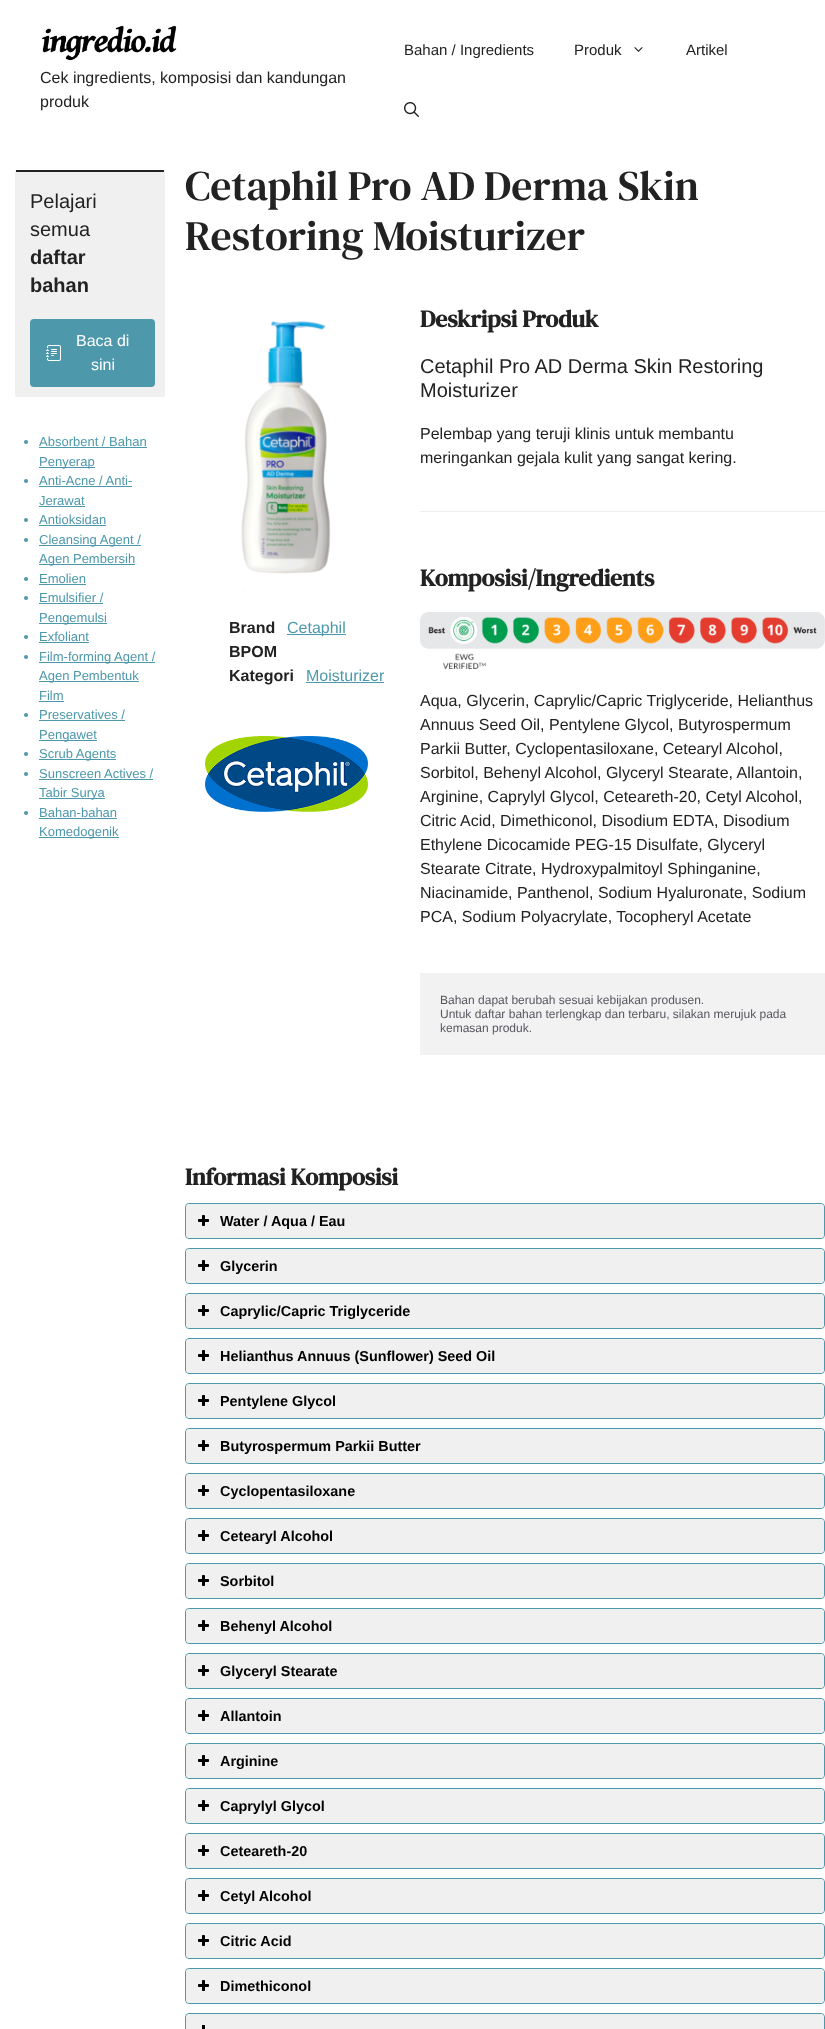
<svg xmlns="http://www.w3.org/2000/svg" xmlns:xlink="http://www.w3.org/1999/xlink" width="825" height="2029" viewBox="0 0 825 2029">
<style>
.cls-1{font:15px Liberation Sans;fill:#222222}
.cls-2{font:16px Liberation Sans;fill:#222222}
.cls-3{font:20px Liberation Sans;fill:#222222}
.cls-4{font:bold 20px Liberation Sans;fill:#222222}
.cls-5{font:16px Liberation Sans;fill:#ffffff}
.cls-6{font:13px Liberation Sans;fill:#4d98ab}
.cls-7{font:42px DM Serif Text;fill:#222222}
.cls-8{font:bold 16px Liberation Sans;fill:#222222}
.cls-9{font:16px Liberation Sans;fill:#4d98ab}
.cls-10{font:bold 24px DM Serif Text;letter-spacing:-0.2px;fill:#222222}
.cls-11{font:12px Liberation Sans;fill:#575760}
.cls-12{font:bold 14.4px Liberation Sans;fill:#000000}
</style>
<rect width="100%" height="100%" fill="#ffffff"/>
<image xlink:href="image0.png" x="634" y="47" width="9" height="5"/>
<image xlink:href="image1.png" x="404" y="102" width="15" height="15"/>
<image xlink:href="image2.png" x="42" y="25" width="135" height="36"/>
<rect fill="#f0f0f0" x="15" y="170" width="150" height="227" rx="2"/>
<rect fill="#222222" x="16" y="170" width="148" height="2"/>
<rect fill="#4d98ab" x="30" y="319" width="125" height="68" rx="4"/>
<image xlink:href="image3.png" x="46" y="345" width="15" height="16"/>
<circle fill="#4d98ab" cx="26" cy="442" r="2"/>
<rect fill="#4d98ab" x="39" y="447" width="108" height="1"/>
<rect fill="#4d98ab" x="39" y="467" width="56" height="1"/>
<circle fill="#4d98ab" cx="26" cy="481" r="2"/>
<rect fill="#4d98ab" x="39" y="486" width="93" height="1"/>
<rect fill="#4d98ab" x="39" y="506" width="46" height="1"/>
<circle fill="#4d98ab" cx="26" cy="520" r="2"/>
<rect fill="#4d98ab" x="39" y="525" width="67" height="1"/>
<circle fill="#4d98ab" cx="26" cy="540" r="2"/>
<rect fill="#4d98ab" x="39" y="545" width="102" height="1"/>
<rect fill="#4d98ab" x="39" y="564" width="96" height="1"/>
<circle fill="#4d98ab" cx="26" cy="579" r="2"/>
<rect fill="#4d98ab" x="39" y="584" width="47" height="1"/>
<circle fill="#4d98ab" cx="26" cy="598" r="2"/>
<rect fill="#4d98ab" x="39" y="603" width="64" height="1"/>
<rect fill="#4d98ab" x="39" y="623" width="68" height="1"/>
<circle fill="#4d98ab" cx="26" cy="637" r="2"/>
<rect fill="#4d98ab" x="39" y="642" width="50" height="1"/>
<circle fill="#4d98ab" cx="26" cy="657" r="2"/>
<rect fill="#4d98ab" x="39" y="662" width="116" height="1"/>
<rect fill="#4d98ab" x="39" y="681" width="100" height="1"/>
<rect fill="#4d98ab" x="39" y="701" width="25" height="1"/>
<circle fill="#4d98ab" cx="26" cy="715" r="2"/>
<rect fill="#4d98ab" x="39" y="720" width="86" height="1"/>
<rect fill="#4d98ab" x="39" y="740" width="58" height="1"/>
<circle fill="#4d98ab" cx="26" cy="754" r="2"/>
<rect fill="#4d98ab" x="39" y="759" width="77" height="1"/>
<circle fill="#4d98ab" cx="26" cy="774" r="2"/>
<rect fill="#4d98ab" x="39" y="779" width="114" height="1"/>
<rect fill="#4d98ab" x="39" y="798" width="66" height="1"/>
<circle fill="#4d98ab" cx="26" cy="813" r="2"/>
<rect fill="#4d98ab" x="39" y="818" width="78" height="1"/>
<rect fill="#4d98ab" x="39" y="837" width="80" height="1"/>
<image xlink:href="image4.png" x="241" y="321" width="90" height="271"/>
<rect fill="#4d98ab" x="287" y="634" width="59" height="1"/>
<rect fill="#4d98ab" x="306" y="682" width="78" height="1"/>
<image xlink:href="image5.png" x="205" y="736" width="163" height="76"/>
<rect fill="#eeeeee" x="420" y="511" width="405" height="1"/>
<image xlink:href="image6.png" x="420" y="612" width="405" height="57"/>
<rect fill="#f2f2f2" x="420" y="973" width="405" height="82"/>
<rect fill="none" stroke="#4d98ab" x="185.5" y="1203.5" width="639" height="35" rx="3.5"/>
<rect fill="#f0f0f0" x="186" y="1204" width="638" height="34" rx="4"/>
<image xlink:href="image7.png" x="198" y="1215" width="11" height="11"/>
<rect fill="none" stroke="#4d98ab" x="185.5" y="1248.5" width="639" height="35" rx="3.5"/>
<rect fill="#f0f0f0" x="186" y="1249" width="638" height="34" rx="4"/>
<image xlink:href="image7.png" x="198" y="1260" width="11" height="11"/>
<rect fill="none" stroke="#4d98ab" x="185.5" y="1293.5" width="639" height="35" rx="3.5"/>
<rect fill="#f0f0f0" x="186" y="1294" width="638" height="34" rx="4"/>
<image xlink:href="image7.png" x="198" y="1305" width="11" height="11"/>
<rect fill="none" stroke="#4d98ab" x="185.5" y="1338.5" width="639" height="35" rx="3.5"/>
<rect fill="#f0f0f0" x="186" y="1339" width="638" height="34" rx="4"/>
<image xlink:href="image7.png" x="198" y="1350" width="11" height="11"/>
<rect fill="none" stroke="#4d98ab" x="185.5" y="1383.5" width="639" height="35" rx="3.5"/>
<rect fill="#f0f0f0" x="186" y="1384" width="638" height="34" rx="4"/>
<image xlink:href="image7.png" x="198" y="1395" width="11" height="11"/>
<rect fill="none" stroke="#4d98ab" x="185.5" y="1428.5" width="639" height="35" rx="3.5"/>
<rect fill="#f0f0f0" x="186" y="1429" width="638" height="34" rx="4"/>
<image xlink:href="image7.png" x="198" y="1440" width="11" height="11"/>
<rect fill="none" stroke="#4d98ab" x="185.5" y="1473.5" width="639" height="35" rx="3.5"/>
<rect fill="#f0f0f0" x="186" y="1474" width="638" height="34" rx="4"/>
<image xlink:href="image7.png" x="198" y="1485" width="11" height="11"/>
<rect fill="none" stroke="#4d98ab" x="185.5" y="1518.5" width="639" height="35" rx="3.5"/>
<rect fill="#f0f0f0" x="186" y="1519" width="638" height="34" rx="4"/>
<image xlink:href="image7.png" x="198" y="1530" width="11" height="11"/>
<rect fill="none" stroke="#4d98ab" x="185.5" y="1563.5" width="639" height="35" rx="3.5"/>
<rect fill="#f0f0f0" x="186" y="1564" width="638" height="34" rx="4"/>
<image xlink:href="image7.png" x="198" y="1575" width="11" height="11"/>
<rect fill="none" stroke="#4d98ab" x="185.5" y="1608.5" width="639" height="35" rx="3.5"/>
<rect fill="#f0f0f0" x="186" y="1609" width="638" height="34" rx="4"/>
<image xlink:href="image7.png" x="198" y="1620" width="11" height="11"/>
<rect fill="none" stroke="#4d98ab" x="185.5" y="1653.5" width="639" height="35" rx="3.5"/>
<rect fill="#f0f0f0" x="186" y="1654" width="638" height="34" rx="4"/>
<image xlink:href="image7.png" x="198" y="1665" width="11" height="11"/>
<rect fill="none" stroke="#4d98ab" x="185.5" y="1698.5" width="639" height="35" rx="3.5"/>
<rect fill="#f0f0f0" x="186" y="1699" width="638" height="34" rx="4"/>
<image xlink:href="image7.png" x="198" y="1710" width="11" height="11"/>
<rect fill="none" stroke="#4d98ab" x="185.5" y="1743.5" width="639" height="35" rx="3.5"/>
<rect fill="#f0f0f0" x="186" y="1744" width="638" height="34" rx="4"/>
<image xlink:href="image7.png" x="198" y="1755" width="11" height="11"/>
<rect fill="none" stroke="#4d98ab" x="185.5" y="1788.5" width="639" height="35" rx="3.5"/>
<rect fill="#f0f0f0" x="186" y="1789" width="638" height="34" rx="4"/>
<image xlink:href="image7.png" x="198" y="1800" width="11" height="11"/>
<rect fill="none" stroke="#4d98ab" x="185.5" y="1833.5" width="639" height="35" rx="3.5"/>
<rect fill="#f0f0f0" x="186" y="1834" width="638" height="34" rx="4"/>
<image xlink:href="image7.png" x="198" y="1845" width="11" height="11"/>
<rect fill="none" stroke="#4d98ab" x="185.5" y="1878.5" width="639" height="35" rx="3.5"/>
<rect fill="#f0f0f0" x="186" y="1879" width="638" height="34" rx="4"/>
<image xlink:href="image7.png" x="198" y="1890" width="11" height="11"/>
<rect fill="none" stroke="#4d98ab" x="185.5" y="1923.5" width="639" height="35" rx="3.5"/>
<rect fill="#f0f0f0" x="186" y="1924" width="638" height="34" rx="4"/>
<image xlink:href="image7.png" x="198" y="1935" width="11" height="11"/>
<rect fill="none" stroke="#4d98ab" x="185.5" y="1968.5" width="639" height="35" rx="3.5"/>
<rect fill="#f0f0f0" x="186" y="1969" width="638" height="34" rx="4"/>
<image xlink:href="image7.png" x="198" y="1980" width="11" height="11"/>
<rect fill="none" stroke="#4d98ab" x="185.5" y="2013.5" width="639" height="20" rx="3.5"/>
<rect fill="#f0f0f0" x="186" y="2014" width="638" height="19" rx="4"/>
<rect fill="#000000" x="202" y="2025" width="3" height="4"/>
<text class="cls-1" x="404" y="55">Bahan / Ingredients</text>
<text class="cls-1" x="574" y="55">Produk</text>
<text class="cls-1" x="686" y="55">Artikel</text>
<text class="cls-2"><tspan x="40" y="83">Cek ingredients, komposisi dan kandungan</tspan><tspan x="40" y="107">produk</tspan></text>
<text class="cls-3"><tspan x="30" y="208">Pelajari</tspan><tspan x="30" y="236">semua</tspan></text>
<text class="cls-4"><tspan x="30" y="264">daftar</tspan><tspan x="30" y="292">bahan</tspan></text>
<text class="cls-5" x="76" y="346">Baca di</text>
<text class="cls-5" x="91" y="370">sini</text>
<text class="cls-6"><tspan x="39" y="446">Absorbent / Bahan</tspan><tspan x="39" y="466">Penyerap</tspan><tspan x="39" y="485">Anti-Acne / Anti-</tspan><tspan x="39" y="505">Jerawat</tspan><tspan x="39" y="524">Antioksidan</tspan><tspan x="39" y="544">Cleansing Agent /</tspan><tspan x="39" y="563">Agen Pembersih</tspan><tspan x="39" y="583">Emolien</tspan><tspan x="39" y="602">Emulsifier /</tspan><tspan x="39" y="622">Pengemulsi</tspan><tspan x="39" y="641">Exfoliant</tspan><tspan x="39" y="661">Film-forming Agent /</tspan><tspan x="39" y="680">Agen Pembentuk</tspan><tspan x="39" y="700">Film</tspan><tspan x="39" y="719">Preservatives /</tspan><tspan x="39" y="739">Pengawet</tspan><tspan x="39" y="758">Scrub Agents</tspan><tspan x="39" y="778">Sunscreen Actives /</tspan><tspan x="39" y="797">Tabir Surya</tspan><tspan x="39" y="817">Bahan-bahan</tspan><tspan x="39" y="836">Komedogenik</tspan></text>
<text class="cls-7"><tspan x="185" y="200">Cetaphil Pro AD Derma Skin</tspan><tspan x="185" y="250">Restoring Moisturizer</tspan></text>
<text class="cls-8" x="229" y="633">Brand</text>
<text class="cls-9" x="287" y="633">Cetaphil</text>
<text class="cls-8"><tspan x="229" y="657">BPOM</tspan><tspan x="229" y="681">Kategori</tspan></text>
<text class="cls-9" x="306" y="681">Moisturizer</text>
<text class="cls-10" x="420" y="327">Deskripsi Produk</text>
<text class="cls-3"><tspan x="420" y="373">Cetaphil Pro AD Derma Skin Restoring</tspan><tspan x="420" y="397">Moisturizer</tspan></text>
<text class="cls-2"><tspan x="420" y="439">Pelembap yang teruji klinis untuk membantu</tspan><tspan x="420" y="463">meringankan gejala kulit yang sangat kering.</tspan></text>
<text class="cls-10" x="420" y="586">Komposisi/Ingredients</text>
<text class="cls-2"><tspan x="420" y="706">Aqua, Glycerin, Caprylic/Capric Triglyceride, Helianthus</tspan><tspan x="420" y="730">Annuus Seed Oil, Pentylene Glycol, Butyrospermum</tspan><tspan x="420" y="754">Parkii Butter, Cyclopentasiloxane, Cetearyl Alcohol,</tspan><tspan x="420" y="778">Sorbitol, Behenyl Alcohol, Glyceryl Stearate, Allantoin,</tspan><tspan x="420" y="802">Arginine, Caprylyl Glycol, Ceteareth-20, Cetyl Alcohol,</tspan><tspan x="420" y="826">Citric Acid, Dimethiconol, Disodium EDTA, Disodium</tspan><tspan x="420" y="850">Ethylene Dicocamide PEG-15 Disulfate, Glyceryl</tspan><tspan x="420" y="874">Stearate Citrate, Hydroxypalmitoyl Sphinganine,</tspan><tspan x="420" y="898">Niacinamide, Panthenol, Sodium Hyaluronate, Sodium</tspan><tspan x="420" y="922">PCA, Sodium Polyacrylate, Tocopheryl Acetate</tspan></text>
<text class="cls-11"><tspan x="440" y="1004">Bahan dapat berubah sesuai kebijakan produsen.</tspan><tspan x="440" y="1018">Untuk daftar bahan terlengkap dan terbaru, silakan merujuk pada</tspan><tspan x="440" y="1032">kemasan produk.</tspan></text>
<text class="cls-10" x="185" y="1185">Informasi Komposisi</text>
<text class="cls-12" x="220" y="1226">Water / Aqua / Eau</text>
<text class="cls-12" x="220" y="1271">Glycerin</text>
<text class="cls-12" x="220" y="1316">Caprylic/Capric Triglyceride</text>
<text class="cls-12" x="220" y="1361">Helianthus Annuus (Sunflower) Seed Oil</text>
<text class="cls-12" x="220" y="1406">Pentylene Glycol</text>
<text class="cls-12" x="220" y="1451">Butyrospermum Parkii Butter</text>
<text class="cls-12" x="220" y="1496">Cyclopentasiloxane</text>
<text class="cls-12" x="220" y="1541">Cetearyl Alcohol</text>
<text class="cls-12" x="220" y="1586">Sorbitol</text>
<text class="cls-12" x="220" y="1631">Behenyl Alcohol</text>
<text class="cls-12" x="220" y="1676">Glyceryl Stearate</text>
<text class="cls-12" x="220" y="1721">Allantoin</text>
<text class="cls-12" x="220" y="1766">Arginine</text>
<text class="cls-12" x="220" y="1811">Caprylyl Glycol</text>
<text class="cls-12" x="220" y="1856">Ceteareth-20</text>
<text class="cls-12" x="220" y="1901">Cetyl Alcohol</text>
<text class="cls-12" x="220" y="1946">Citric Acid</text>
<text class="cls-12" x="220" y="1991">Dimethiconol</text>
</svg>
